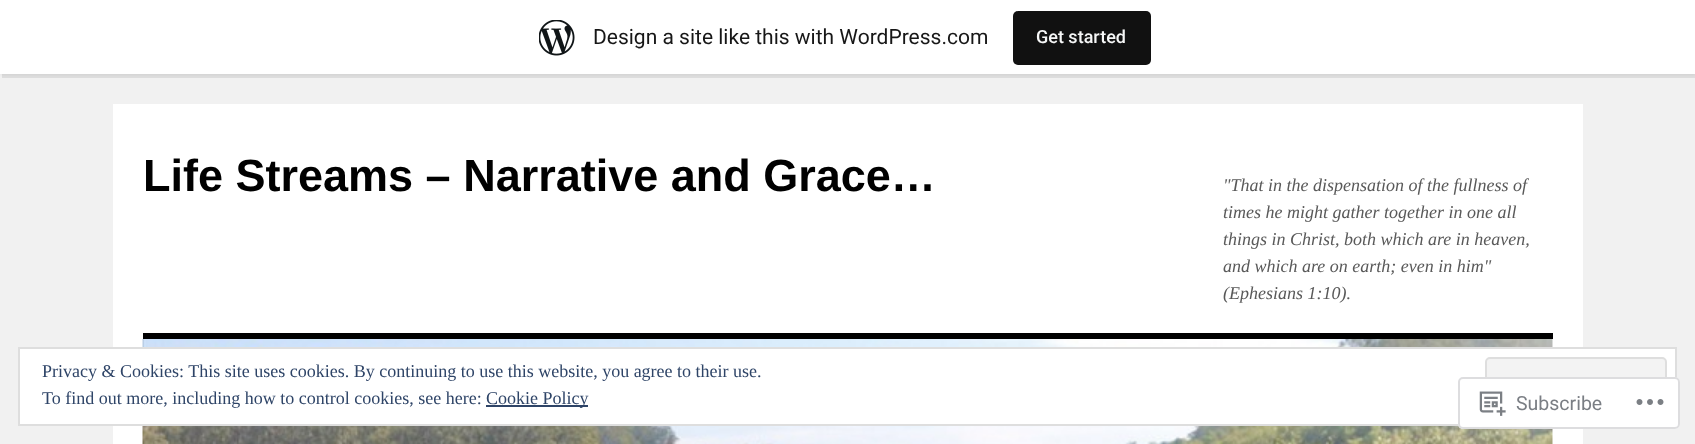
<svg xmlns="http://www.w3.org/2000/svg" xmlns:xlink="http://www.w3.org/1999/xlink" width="1695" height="444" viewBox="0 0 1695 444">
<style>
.cls-1{font:21px Roboto;fill:#171717}
.cls-2{font:500 18px Roboto;fill:#f6f7f7}
.cls-3{font:bold 45px Liberation Sans;fill:#000000}
.cls-4{font:italic 18px Liberation Serif;fill:#595959}
.cls-5{font:18px Liberation Serif;fill:#2e4467}
.cls-6{font:19.5px Roboto;fill:#7a7e84}
</style>
<rect width="100%" height="100%" fill="#f1f1f1"/>
<rect fill="#000000" fill-opacity="0.05" filter="blur(1.5px)" x="0" y="2" width="1695" height="73"/>
<path fill="#000000" fill-opacity="0.08" d="M2 74V78H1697V5H1695V74Z"/>
<rect fill="#ffffff" x="0" y="0" width="1695" height="74"/>
<image xlink:href="image0.png" x="539" y="20" width="36" height="36"/>
<rect fill="#111111" x="1013" y="11" width="138" height="54" rx="5"/>
<rect fill="#ffffff" x="113" y="104" width="1470" height="340"/>
<rect fill="#000000" x="143" y="333" width="1410" height="6"/>
<image xlink:href="image1.png" x="142" y="339" width="1411" height="105"/>
<rect fill="#ffffff" stroke="#dedede" stroke-width="2" x="19" y="348" width="1657" height="77"/>
<rect fill="#f3f3f3" stroke="#dedede" stroke-width="2" x="1486" y="358" width="180" height="57" rx="4"/>
<rect fill="#2e4467" x="486" y="405" width="102" height="2"/>
<rect fill="#ffffff" fill-opacity="0.98" x="1458" y="377" width="222" height="52" rx="5"/>
<rect fill="none" stroke="#dcdcde" stroke-opacity="0.98" stroke-width="2" x="1459" y="378" width="220" height="50" rx="4"/>
<image xlink:href="image2.png" x="1479" y="391" width="27" height="25"/>
<image xlink:href="image3.png" x="1636" y="399" width="28" height="6"/>
<text class="cls-1" x="593" y="44">Design a site like this with WordPress.com</text>
<text class="cls-2" x="1036" y="43">Get started</text>
<text class="cls-3" x="143" y="191">Life Streams – Narrative and Grace…</text>
<text class="cls-4"><tspan x="1223" y="191">"That in the dispensation of the fullness of</tspan><tspan x="1223" y="218">times he might gather together in one all</tspan><tspan x="1223" y="245">things in Christ, both which are in heaven,</tspan><tspan x="1223" y="272">and which are on earth; even in him"</tspan><tspan x="1223" y="299">(Ephesians 1:10).</tspan></text>
<text class="cls-5"><tspan x="42" y="377">Privacy &amp; Cookies: This site uses cookies. By continuing to use this website, you agree to their use.</tspan><tspan x="42" y="404">To find out more, including how to control cookies, see here:</tspan></text>
<text class="cls-5" x="486" y="404">Cookie Policy</text>
<text class="cls-6" x="1516" y="410">Subscribe</text>
</svg>
